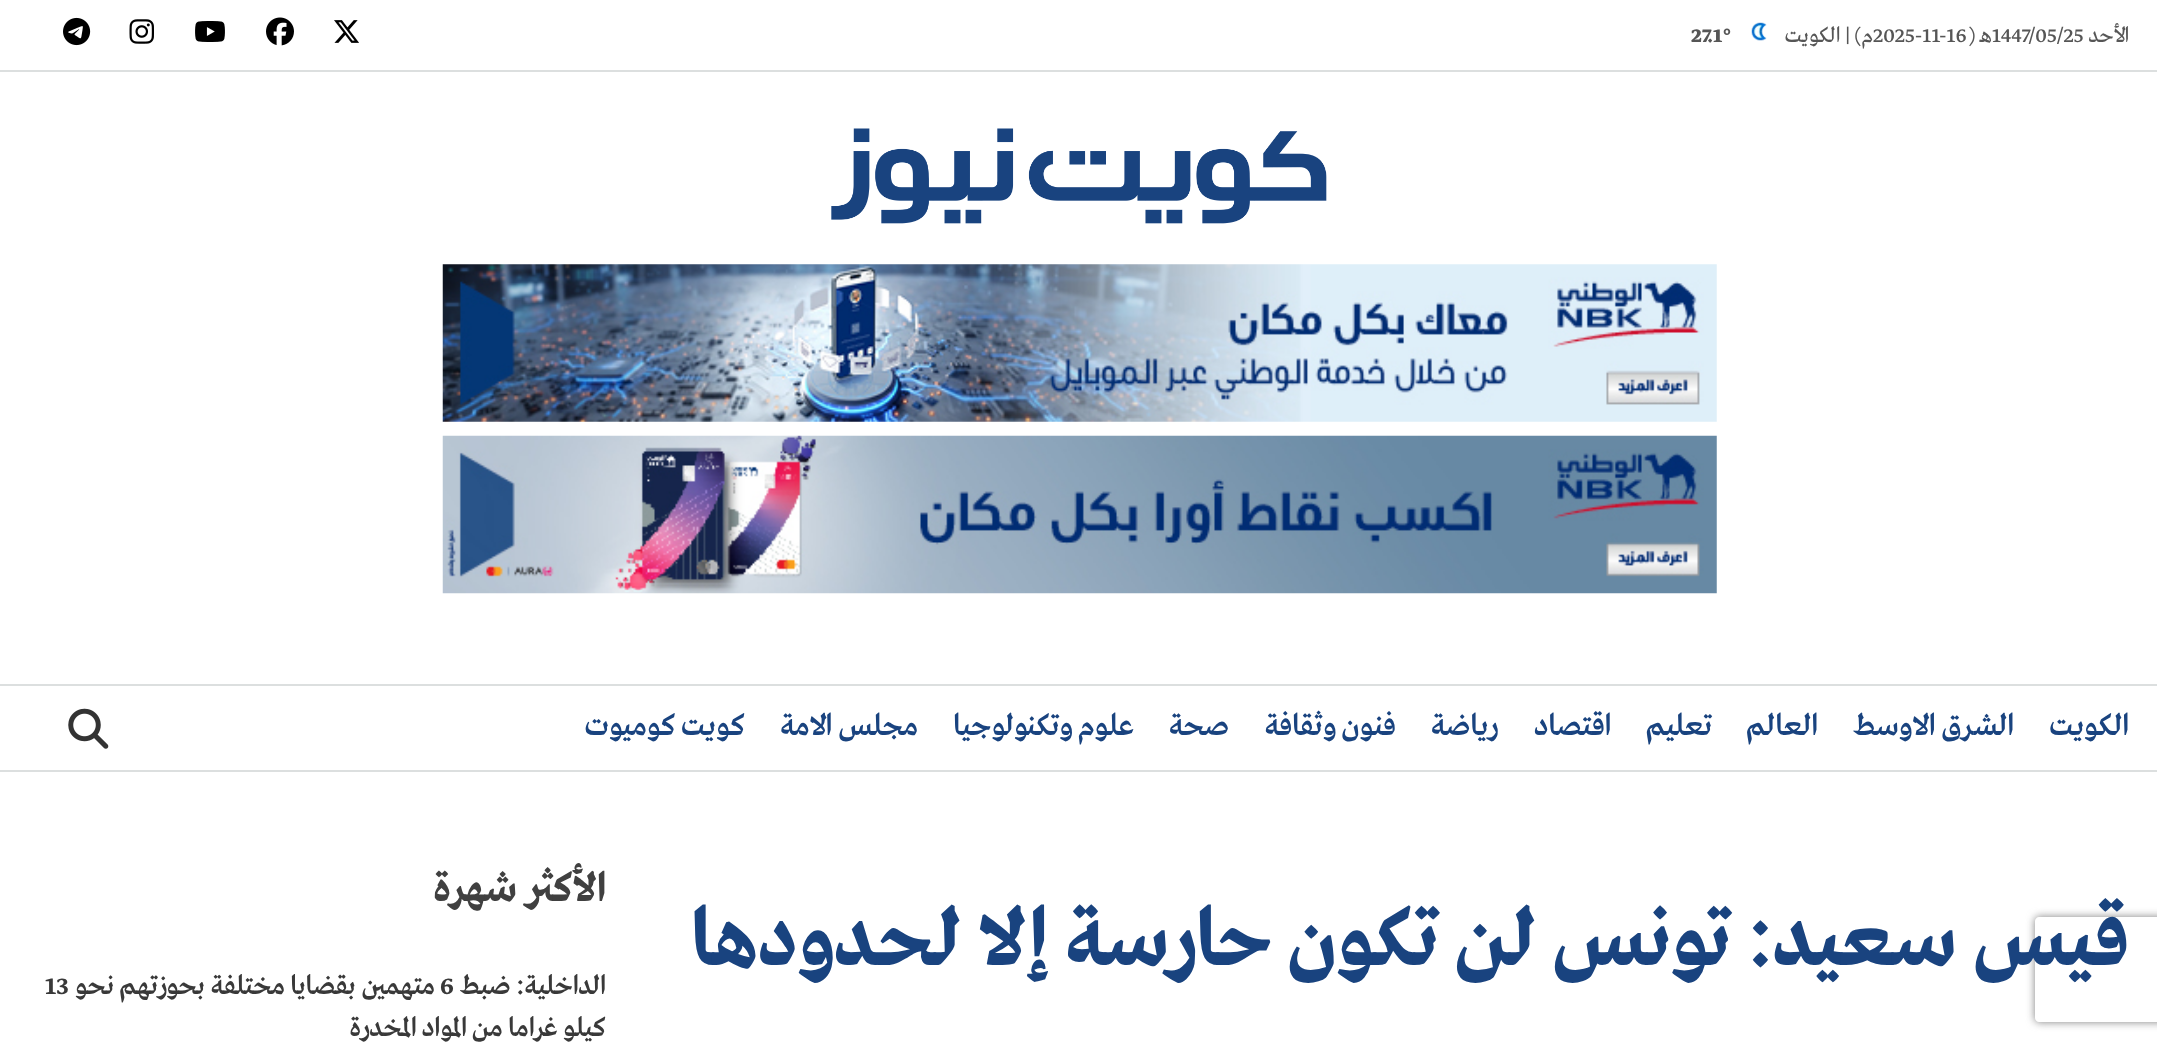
<svg xmlns="http://www.w3.org/2000/svg" xmlns:xlink="http://www.w3.org/1999/xlink" width="2157" height="1046" viewBox="0 0 2157 1046">
<style>
.cls-1{font:22.75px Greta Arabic;direction:rtl;fill:#565656}
.cls-2{font:22.75px Greta Arabic;fill:#565656}
.cls-3{font:bold 22.75px Greta Arabic;fill:#565656}
.cls-4{font:500 31.5px Greta Arabic;direction:rtl;fill:#19437f}
.cls-5{font:bold 84px Greta Arabic;direction:rtl;fill:#19437f}
.cls-6{font:bold 42px Greta Arabic;direction:rtl;fill:#404040}
.cls-7{font:500 28px Greta Arabic;direction:rtl;fill:#393939}
.cls-8{font:500 28px Greta Arabic;fill:#393939}
</style>
<defs>
<clipPath id="clip1"><path d="M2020 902H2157V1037H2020ZM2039 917H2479C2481 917 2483 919 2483 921V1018C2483 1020 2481 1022 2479 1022H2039C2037 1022 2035 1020 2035 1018V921C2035 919 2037 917 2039 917Z" clip-rule="evenodd"/></clipPath>
</defs>
<rect width="100%" height="100%" fill="#ffffff"/>
<rect fill="#dcdfdf" x="0" y="70" width="2157" height="2"/>
<image xlink:href="image0.png" x="1751" y="22" width="16" height="19"/>
<image xlink:href="image1.png" x="334" y="20" width="25" height="23"/>
<image xlink:href="image2.png" x="266" y="17" width="28" height="29"/>
<image xlink:href="image3.png" x="195" y="21" width="30" height="21"/>
<image xlink:href="image4.png" x="129" y="19" width="25" height="25"/>
<image xlink:href="image5.png" x="63" y="17" width="28" height="29"/>
<image xlink:href="image6.png" x="831" y="128" width="496" height="96"/>
<image xlink:href="image7.png" x="442" y="264" width="1275" height="158"/>
<image xlink:href="image8.png" x="442" y="435" width="1275" height="159"/>
<rect fill="#dcdfdf" x="0" y="684" width="2157" height="2"/>
<rect fill="#dcdfdf" x="0" y="770" width="2157" height="2"/>
<image xlink:href="image9.png" x="68" y="708" width="41" height="41"/>
<g clip-path="url(#clip1)">
<rect fill="#808080" filter="blur(4.5px)" x="2035" y="917" width="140" height="105" rx="4"/>
</g>
<text class="cls-1" x="2129" y="42">الأحد</text>
<text class="cls-2" x="1992" y="42">1447/05/25</text>
<text class="cls-1" x="1992" y="42">هـ (</text>
<text class="cls-2" x="1873" y="42">2025-11-16</text>
<text class="cls-1" x="1873" y="42">م) | الكويت</text>
<text class="cls-3" x="1691" y="42">27.1°</text>
<text class="cls-4" x="2129" y="735">الكويت</text>
<text class="cls-4" x="2014" y="735">الشرق الاوسط</text>
<text class="cls-4" x="1818" y="735">العالم</text>
<text class="cls-4" x="1712" y="735">تعليم</text>
<text class="cls-4" x="1611" y="735">اقتصاد</text>
<text class="cls-4" x="1499" y="735">رياضة</text>
<text class="cls-4" x="1396" y="735">فنون وثقافة</text>
<text class="cls-4" x="1229" y="735">صحة</text>
<text class="cls-4" x="1134" y="735">علوم وتكنولوجيا</text>
<text class="cls-4" x="918" y="735">مجلس الامة</text>
<text class="cls-4" x="745" y="735">كويت كوميوت</text>
<text class="cls-5" x="2129" y="965">قيس سعيد: تونس لن تكون حارسة إلا لحدودها</text>
<text class="cls-6" x="606" y="901">الأكثر شهرة</text>
<text class="cls-7" x="606" y="994">الداخلية: ضبط</text>
<text class="cls-8" x="440" y="994">6</text>
<text class="cls-7" x="435" y="994">متهمين بقضايا مختلفة بحوزتهم نحو</text>
<text class="cls-8" x="45" y="994">13</text>
<text class="cls-7" x="606" y="1036">كيلو غراما من المواد المخدرة</text>
</svg>
